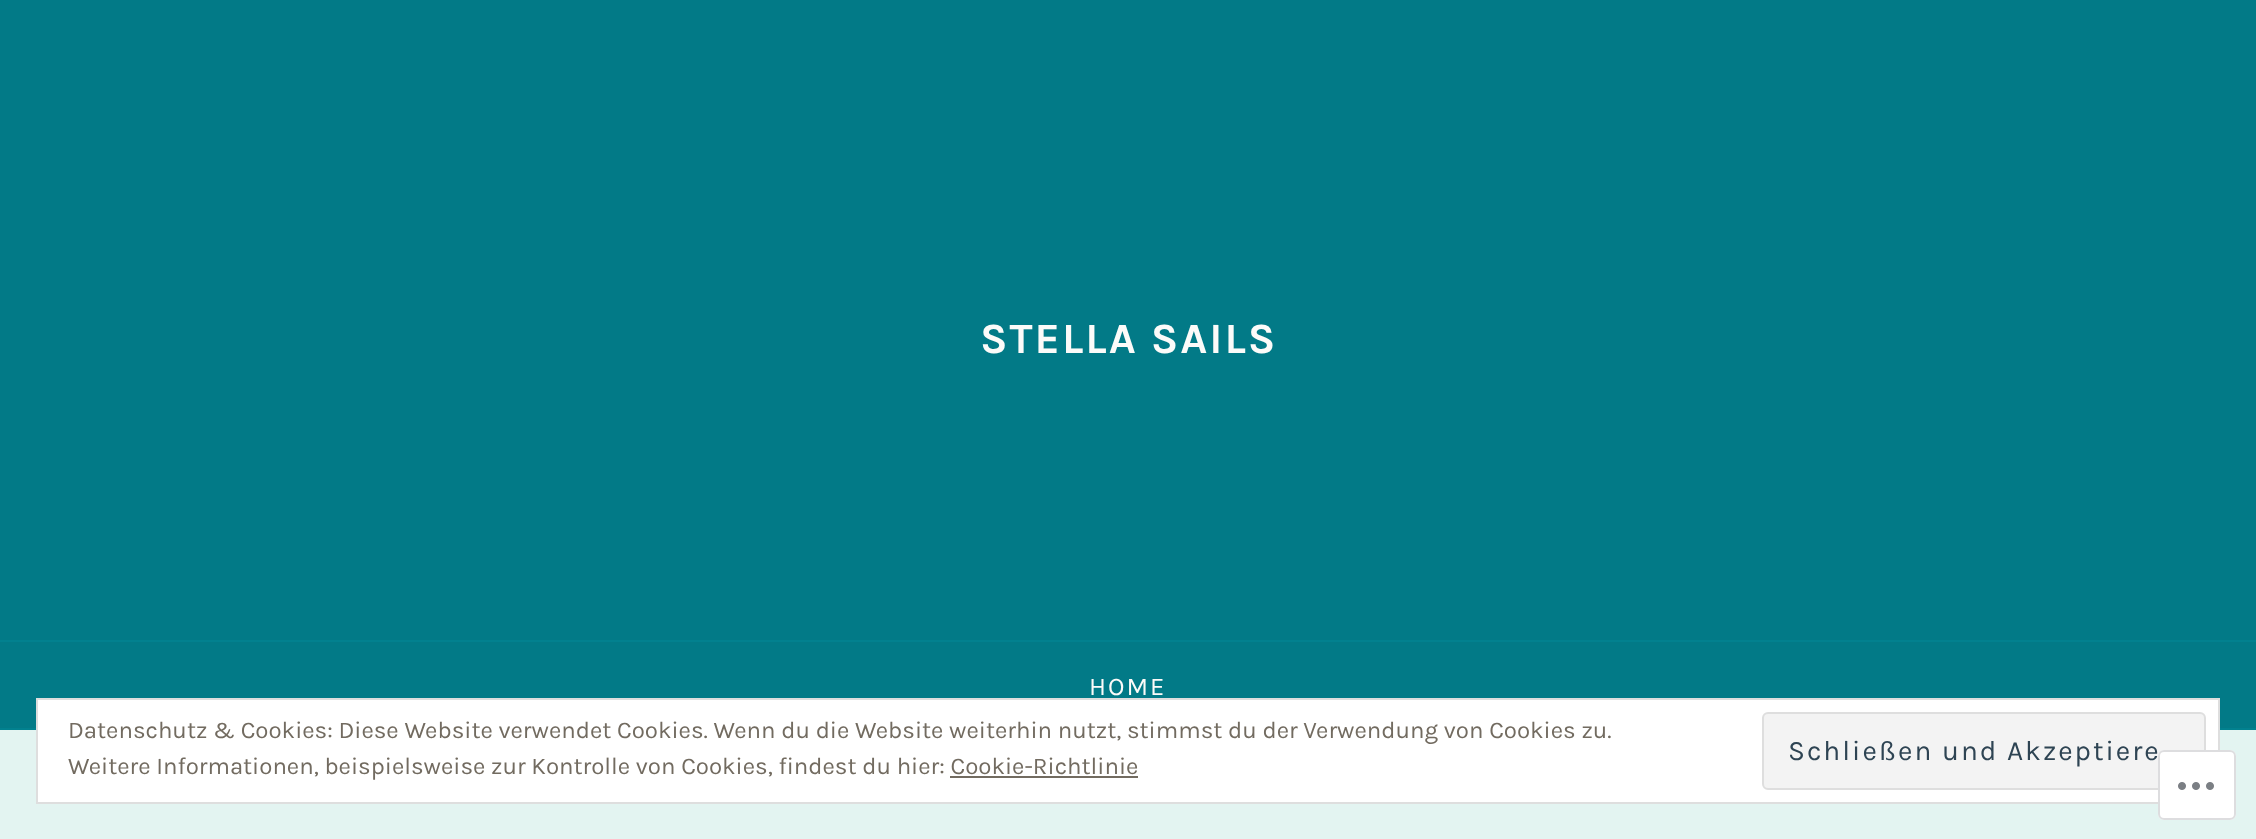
<svg xmlns="http://www.w3.org/2000/svg" xmlns:xlink="http://www.w3.org/1999/xlink" width="2256" height="839" viewBox="0 0 2256 839">
<style>
.cls-1{font:bold 43.25px Karla;letter-spacing:2px;fill:#fcfbf9}
.cls-2{font:25.5px Karla;letter-spacing:2px;fill:#fcfbf9}
.cls-3{font:24px Karla;fill:#726b60}
.cls-4{font:28px Karla;letter-spacing:2px;fill:#2e4453}
</style>
<rect width="100%" height="100%" fill="#e3f4f1"/>
<rect fill="#027a87" x="0" y="0" width="2256" height="728"/>
<rect fill="#02818f" x="0" y="640" width="2256" height="2"/>
<rect fill="#02818f" x="0" y="728" width="2256" height="2"/>
<rect fill="#ffffff" stroke="#dedede" stroke-width="2" x="37" y="699" width="2182" height="104"/>
<rect fill="#f3f3f3" stroke="#dedede" stroke-width="2" x="1763" y="713" width="442" height="76" rx="5"/>
<rect fill="#726b60" x="950" y="776" width="188" height="2"/>
<rect fill="#ffffff" fill-opacity="0.98" x="2158" y="750" width="78" height="70" rx="6"/>
<rect fill="none" stroke="#dcdcde" stroke-opacity="0.98" stroke-width="2" x="2159" y="751" width="76" height="68" rx="5"/>
<image xlink:href="image0.png" x="2178" y="782" width="36" height="8"/>
<text class="cls-1" x="980" y="353">STELLA SAILS</text>
<text class="cls-2" x="1089" y="695">HOME</text>
<text class="cls-3"><tspan x="68" y="738">Datenschutz &amp; Cookies: Diese Website verwendet Cookies. Wenn du die Website weiterhin nutzt, stimmst du der Verwendung von Cookies zu.</tspan><tspan x="68" y="774">Weitere Informationen, beispielsweise zur Kontrolle von Cookies, findest du hier: Cookie-Richtlinie</tspan></text>
<text class="cls-4" x="1788" y="760">Schließen und Akzeptiere</text>
</svg>
